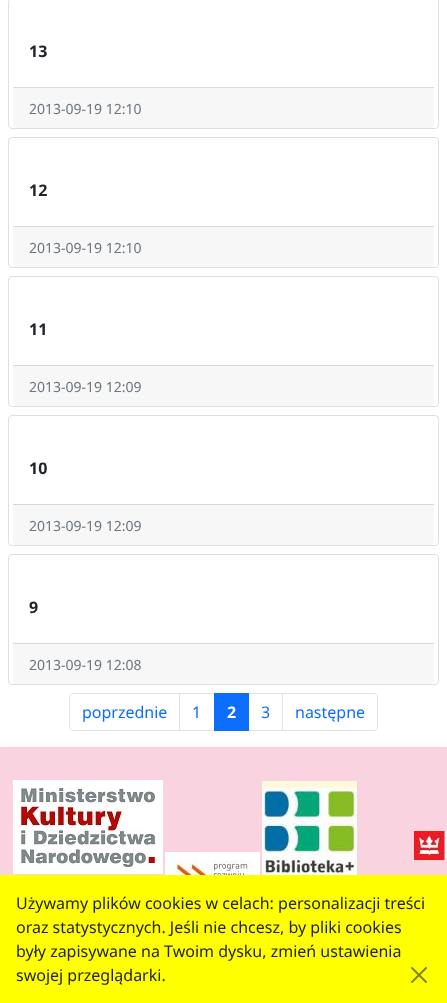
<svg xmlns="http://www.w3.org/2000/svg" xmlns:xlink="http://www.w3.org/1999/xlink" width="447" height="1003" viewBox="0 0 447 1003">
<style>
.cls-1{font:bold 16px Noto Sans;fill:#212529}
.cls-2{font:14px Noto Sans;fill:#6c757d}
.cls-3{font:16px Noto Sans;fill:#0d6efd}
.cls-4{font:bold 16px Noto Sans;fill:#ffffff}
.cls-5{font:16px Noto Sans;fill:#212529}
</style>
<rect width="100%" height="100%" fill="#ffffff"/>
<rect fill="none" stroke="#dfdfdf" x="8.5" y="-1.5" width="430" height="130" rx="3.5"/>
<path fill="#f7f7f7" d="M13 87H434V125C434 126.5 432.5 128 431 128H16C14.5 128 13 126.5 13 125Z"/>
<rect fill="#d8d8d8" x="13" y="87" width="421" height="1"/>
<rect fill="none" stroke="#dfdfdf" x="8.5" y="137.5" width="430" height="130" rx="3.5"/>
<path fill="#f7f7f7" d="M13 226H434V264C434 265.5 432.5 267 431 267H16C14.5 267 13 265.5 13 264Z"/>
<rect fill="#d8d8d8" x="13" y="226" width="421" height="1"/>
<rect fill="none" stroke="#dfdfdf" x="8.5" y="276.5" width="430" height="130" rx="3.5"/>
<path fill="#f7f7f7" d="M13 365H434V403C434 404.5 432.5 406 431 406H16C14.5 406 13 404.5 13 403Z"/>
<rect fill="#d8d8d8" x="13" y="365" width="421" height="1"/>
<rect fill="none" stroke="#dfdfdf" x="8.5" y="415.5" width="430" height="130" rx="3.5"/>
<path fill="#f7f7f7" d="M13 504H434V542C434 543.5 432.5 545 431 545H16C14.5 545 13 543.5 13 542Z"/>
<rect fill="#d8d8d8" x="13" y="504" width="421" height="1"/>
<rect fill="none" stroke="#dfdfdf" x="8.5" y="554.5" width="430" height="130" rx="3.5"/>
<path fill="#f7f7f7" d="M13 643H434V681C434 682.5 432.5 684 431 684H16C14.5 684 13 682.5 13 681Z"/>
<rect fill="#d8d8d8" x="13" y="643" width="421" height="1"/>
<rect fill="#000000" fill-opacity="0.15" filter="blur(8px)" x="0" y="755" width="447" height="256"/>
<path fill="none" stroke="#dee2e6" d="M73 693.5H179.5V730.5H73C71 730.5 69.5 729 69.5 727V697C69.5 695 71 693.5 73 693.5Z"/>
<rect fill="none" stroke="#dee2e6" x="179.5" y="693.5" width="35" height="37"/>
<rect fill="none" stroke="#dee2e6" x="248.5" y="693.5" width="34" height="37"/>
<rect fill="#0d6efd" x="214" y="693" width="35" height="38"/>
<path fill="#ffffff" stroke="#dee2e6" d="M282.5 693.5H374C376 693.5 377.5 695 377.5 697V727C377.5 729 376 730.5 374 730.5H282.5Z"/>
<rect fill="#f9d3e0" x="0" y="747" width="447" height="128"/>
<image xlink:href="image0.png" x="13" y="780" width="150" height="94"/>
<image xlink:href="image1.png" x="262" y="781" width="95" height="94"/>
<image xlink:href="image2.png" x="414" y="831" width="33" height="29"/>
<image xlink:href="image3.png" x="165" y="852" width="95" height="23"/>
<rect fill="#ffff00" x="0" y="875" width="447" height="128"/>
<image xlink:href="image4.png" x="411" y="967" width="16" height="16"/>
<text class="cls-1" x="29" y="57">13</text>
<text class="cls-2" x="29" y="114">2013-09-19 12:10</text>
<text class="cls-1" x="29" y="196">12</text>
<text class="cls-2" x="29" y="253">2013-09-19 12:10</text>
<text class="cls-1" x="29" y="335">11</text>
<text class="cls-2" x="29" y="392">2013-09-19 12:09</text>
<text class="cls-1" x="29" y="474">10</text>
<text class="cls-2" x="29" y="531">2013-09-19 12:09</text>
<text class="cls-1" x="29" y="613">9</text>
<text class="cls-2" x="29" y="670">2013-09-19 12:08</text>
<text class="cls-3" x="82" y="718">poprzednie</text>
<text class="cls-3" x="192" y="718">1</text>
<text class="cls-4" x="227" y="718">2</text>
<text class="cls-3" x="261" y="718">3</text>
<text class="cls-3" x="295" y="718">następne</text>
<text class="cls-5"><tspan x="16" y="909">Używamy plików cookies w celach: personalizacji treści</tspan><tspan x="16" y="933">oraz statystycznych. Jeśli nie chcesz, by pliki cookies</tspan><tspan x="16" y="957">były zapisywane na Twoim dysku, zmień ustawienia</tspan><tspan x="16" y="981">swojej przeglądarki.</tspan></text>
</svg>
